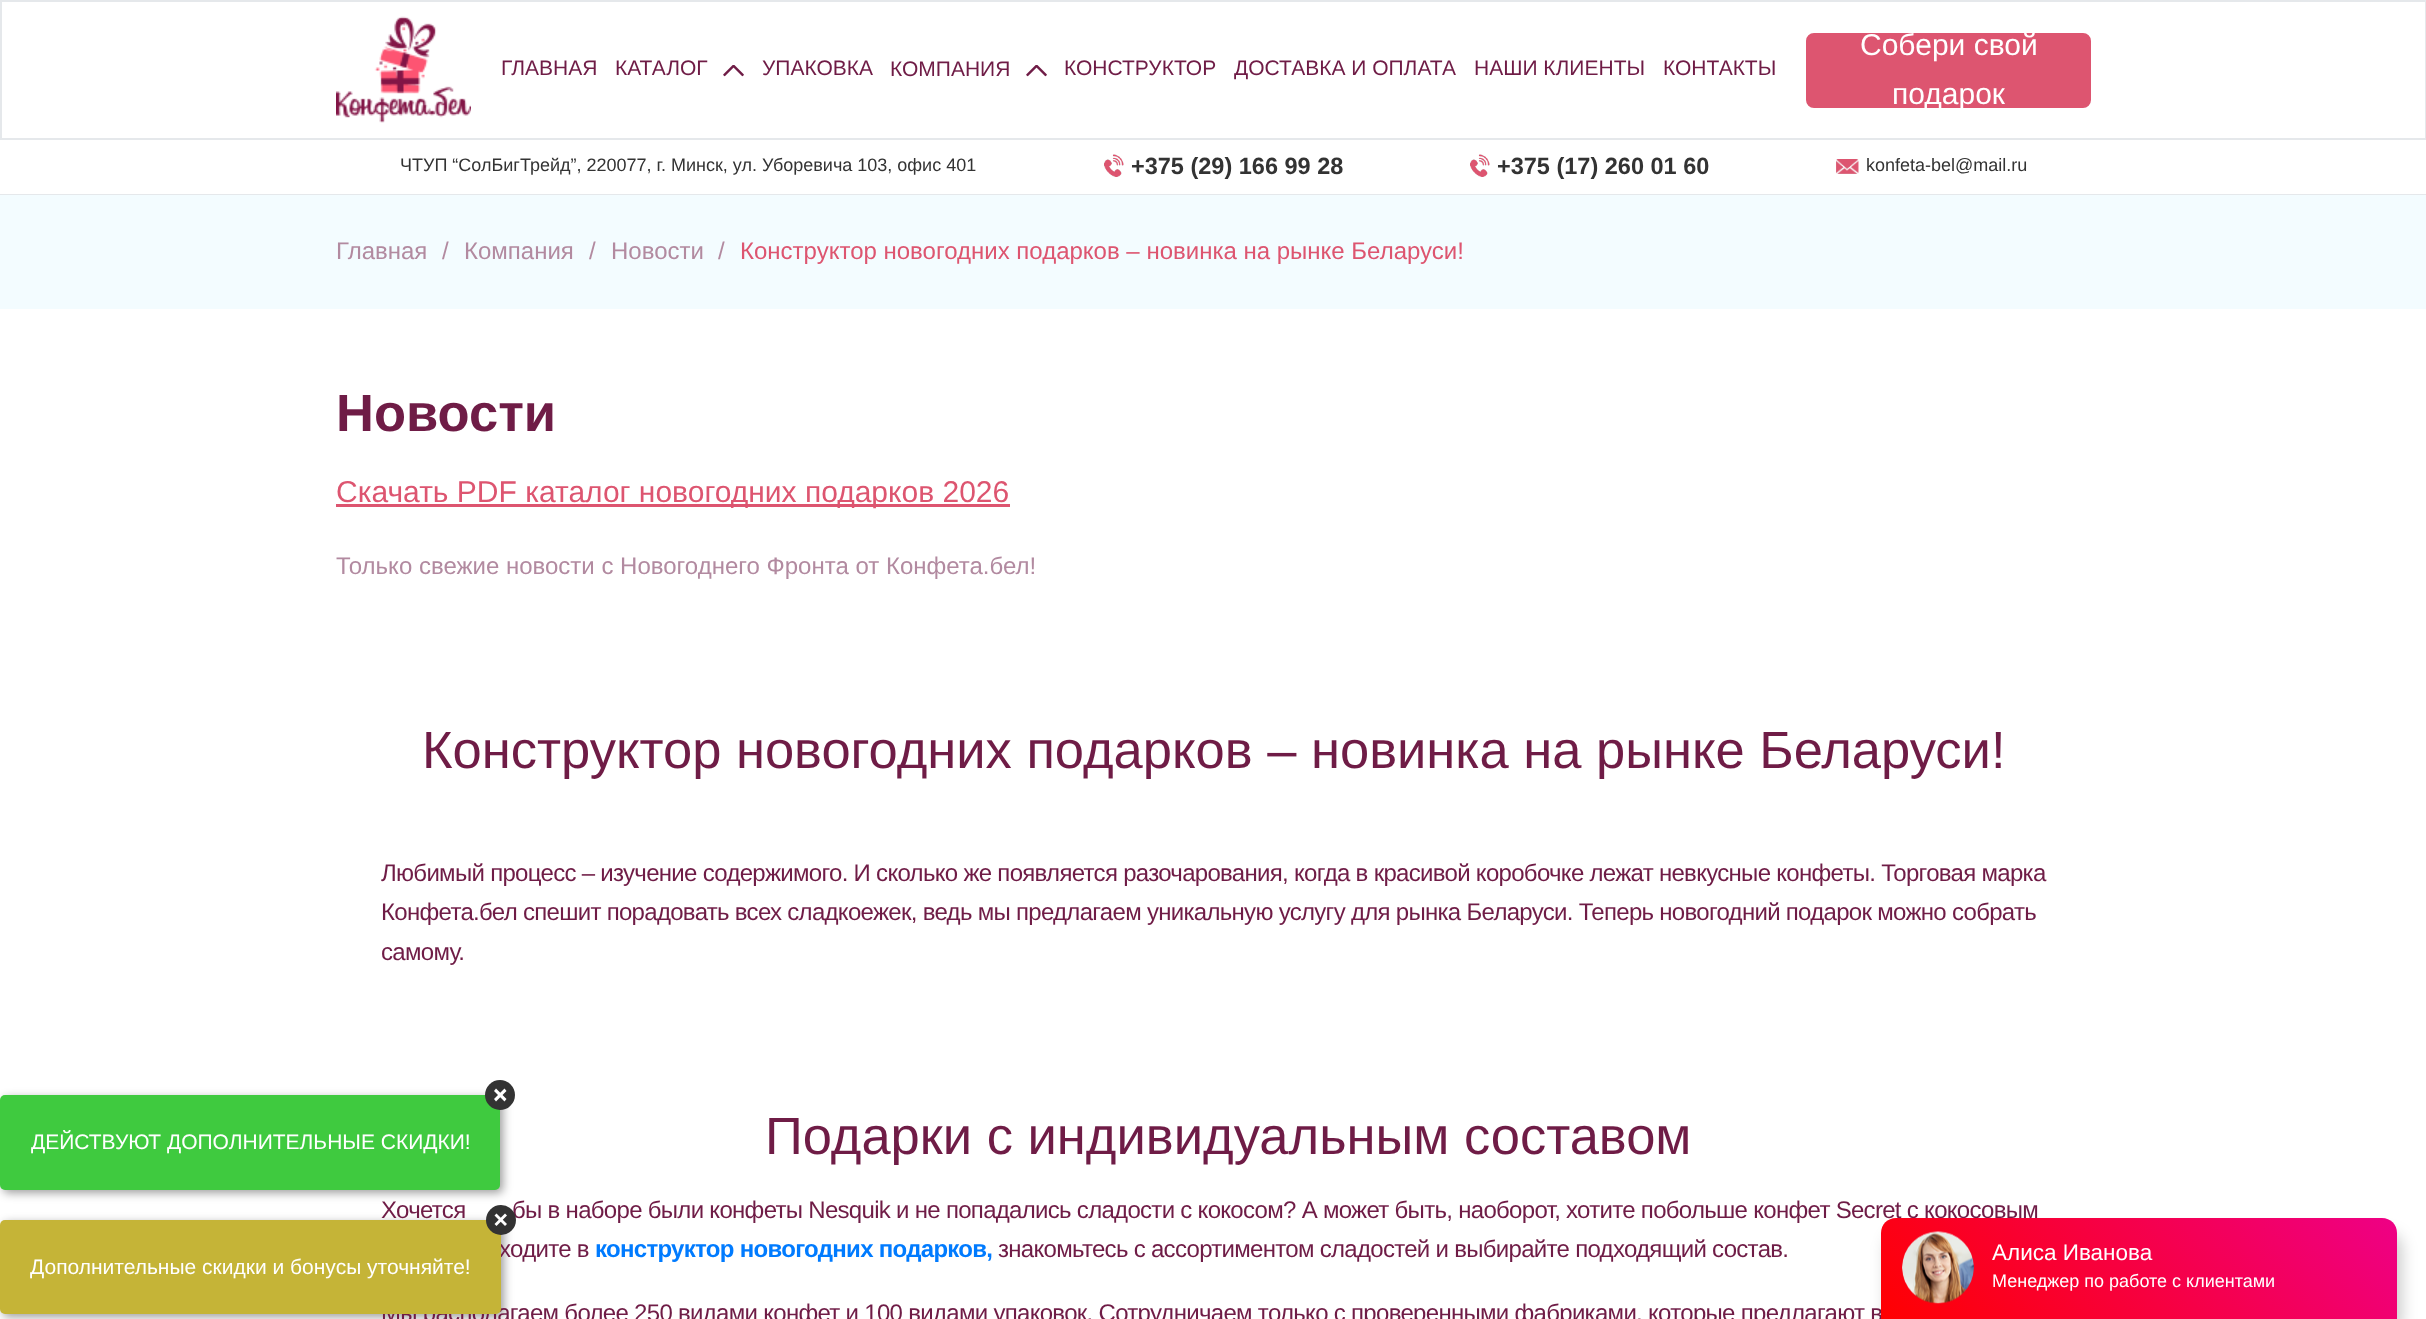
<svg xmlns="http://www.w3.org/2000/svg" xmlns:xlink="http://www.w3.org/1999/xlink" width="2426" height="1319" viewBox="0 0 2426 1319">
<style>
.cls-1{font:21px Liberation Sans;fill:#6f1c46}
.cls-2{font:30px Liberation Sans;fill:#ffffff}
.cls-3{font:18px Liberation Sans;fill:#333333}
.cls-4{font:bold 23.5px Liberation Sans;fill:#333333}
.cls-5{font:24px Liberation Sans;fill:#b28aa0}
.cls-6{font:24px Liberation Sans;fill:#dd5570}
.cls-7{font:bold 52.5px Liberation Sans;fill:#6f1c46}
.cls-8{font:30px Liberation Sans;fill:#dd5570}
.cls-9{font:21px Liberation Sans;fill:#ffffff}
.cls-10{font:52.5px Liberation Sans;fill:#6f1c46}
.cls-11{font:24px Liberation Sans;letter-spacing:-0.7px;fill:#6f1c46}
.cls-12{font:bold 24px Liberation Sans;letter-spacing:-0.7px;fill:#007bff}
.cls-13{font:22.5px Liberation Sans;fill:#ffffff}
.cls-14{font:18px Liberation Sans;fill:#ffffff}
</style>
<defs>
<linearGradient id="g1" gradientUnits="userSpaceOnUse" x1="1980" y1="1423" x2="2298" y2="1115"><stop offset="0" stop-color="#ff0000"/><stop offset="1" stop-color="#ee0086"/></linearGradient>
</defs>
<rect width="100%" height="100%" fill="#ffffff"/>
<rect fill="none" stroke="#e5e8eb" stroke-width="2" x="1" y="1" width="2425" height="138"/>
<image xlink:href="image0.png" x="336" y="16" width="135" height="107"/>
<image xlink:href="image1.png" x="723" y="65" width="21" height="12"/>
<image xlink:href="image1.png" x="1026" y="65" width="21" height="12"/>
<rect fill="#dd5570" stroke="#dd5570" stroke-width="3" x="1807.5" y="34.5" width="282" height="72" rx="6.5"/>
<rect fill="#e5e8eb" x="0" y="194" width="2426" height="1"/>
<image xlink:href="image2.png" x="1104" y="154" width="20" height="23"/>
<image xlink:href="image3.png" x="1470" y="154" width="20" height="23"/>
<image xlink:href="image4.png" x="1836" y="159" width="23" height="15"/>
<rect fill="#f3fcff" x="0" y="195" width="2426" height="114"/>
<rect fill="#dd5570" x="336" y="504" width="674" height="3"/>
<rect fill="#000000" fill-opacity="0.38" filter="blur(5px)" x="3" y="1098" width="500" height="95" rx="5"/>
<rect fill="#3fca3f" x="0" y="1095" width="500" height="95" rx="5"/>
<circle fill="#333333" cx="500" cy="1095" r="15"/>
<path fill="#ffffff" d="M496 1088.5L506.5 1099L504.5 1101.5L494 1091Z"/>
<path fill="#ffffff" d="M494 1099L504.5 1088.5L506.5 1091L496 1101.5Z"/>
<rect fill="#000000" fill-opacity="0.38" filter="blur(5px)" x="3" y="1223" width="501" height="94" rx="5"/>
<rect fill="#000000" fill-opacity="0.2" filter="blur(7.5px)" x="1886" y="1233" width="516" height="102" rx="15"/>
<text class="cls-1" x="501" y="75">ГЛАВНАЯ</text>
<text class="cls-1" x="615" y="75">КАТАЛОГ</text>
<text class="cls-1" x="762" y="75">УПАКОВКА</text>
<text class="cls-1" x="890" y="76">КОМПАНИЯ</text>
<text class="cls-1" x="1064" y="75">КОНСТРУКТОР</text>
<text class="cls-1" x="1234" y="75">ДОСТАВКА И ОПЛАТА</text>
<text class="cls-1" x="1474" y="75">НАШИ КЛИЕНТЫ</text>
<text class="cls-1" x="1663" y="75">КОНТАКТЫ</text>
<text class="cls-2" x="1860" y="55">Собери свой</text>
<text class="cls-2" x="1892" y="104">подарок</text>
<text class="cls-3" x="400" y="171">ЧТУП “СолБигТрейд”, 220077, г. Минск, ул. Уборевича 103, офис 401</text>
<text class="cls-4" x="1131" y="174">+375 (29) 166 99 28</text>
<text class="cls-4" x="1497" y="174">+375 (17) 260 01 60</text>
<text class="cls-3" x="1866" y="171">konfeta-bel@mail.ru</text>
<text class="cls-5" x="336" y="259">Главная</text>
<text class="cls-5" x="442" y="259">/</text>
<text class="cls-5" x="464" y="259">Компания</text>
<text class="cls-5" x="589" y="259">/</text>
<text class="cls-5" x="611" y="259">Новости</text>
<text class="cls-5" x="718" y="259">/</text>
<text class="cls-6" x="740" y="259">Конструктор новогодних подарков – новинка на рынке Беларуси!</text>
<text class="cls-7" x="336" y="431">Новости</text>
<text class="cls-8" x="336" y="502">Скачать PDF каталог новогодних подарков 2026</text>
<text class="cls-5" x="336" y="574">Только свежие новости с Новогоднего Фронта от Конфета.бел!</text>
<text class="cls-9" x="31" y="1149">ДЕЙСТВУЮТ ДОПОЛНИТЕЛЬНЫЕ СКИДКИ!</text>
<text class="cls-10" x="422" y="768">Конструктор новогодних подарков – новинка на рынке Беларуси!</text>
<text class="cls-11"><tspan x="381" y="881">Любимый процесс – изучение содержимого. И сколько же появляется разочарования, когда в красивой коробочке лежат невкусные конфеты. Торговая марка</tspan><tspan x="381" y="920">Конфета.бел спешит порадовать всех сладкоежек, ведь мы предлагаем уникальную услугу для рынка Беларуси. Теперь новогодний подарок можно собрать</tspan><tspan x="381" y="960">самому.</tspan></text>
<text class="cls-10" x="765" y="1154">Подарки с индивидуальным составом</text>
<text class="cls-11" x="381" y="1218">Хочется</text>
<text class="cls-11" x="512" y="1218">бы в наборе были конфеты Nesquik и не попадались сладости с кокосом? А может быть, наоборот, хотите побольше конфет Secret с кокосовым</text>
<text class="cls-11" x="499" y="1257">ходите в</text>
<text class="cls-12" x="595" y="1257">конструктор новогодних подарков,</text>
<text class="cls-11" x="998" y="1257">знакомьтесь с ассортиментом сладостей и выбирайте подходящий состав.</text>
<text class="cls-11" x="381" y="1321">Мы располагаем более 250 видами конфет и 100 видами упаковок. Сотрудничаем только с проверенными фабриками, которые предлагают в</text>
<rect fill="#c5b437" x="0" y="1220" width="501" height="94" rx="5"/>
<circle fill="#333333" cx="501" cy="1220" r="15"/>
<path fill="#ffffff" d="M496.5 1213.5L507 1224L505 1226L494.5 1215.5Z"/>
<path fill="#ffffff" d="M494.5 1224L505 1213.5L507 1215.5L496.5 1226Z"/>
<text class="cls-9" x="30" y="1274">Дополнительные скидки и бонусы уточняйте!</text>
<path fill="url(#g1)" d="M1896 1218H2382C2390.5 1218 2397 1224.5 2397 1233V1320H1881V1233C1881 1224.5 1887.5 1218 1896 1218Z"/>
<image xlink:href="image5.png" x="1902" y="1231" width="72" height="73"/>
<text class="cls-13" x="1992" y="1260">Алиса Иванова</text>
<text class="cls-14" x="1992" y="1287">Менеджер по работе с клиентами</text>
</svg>
